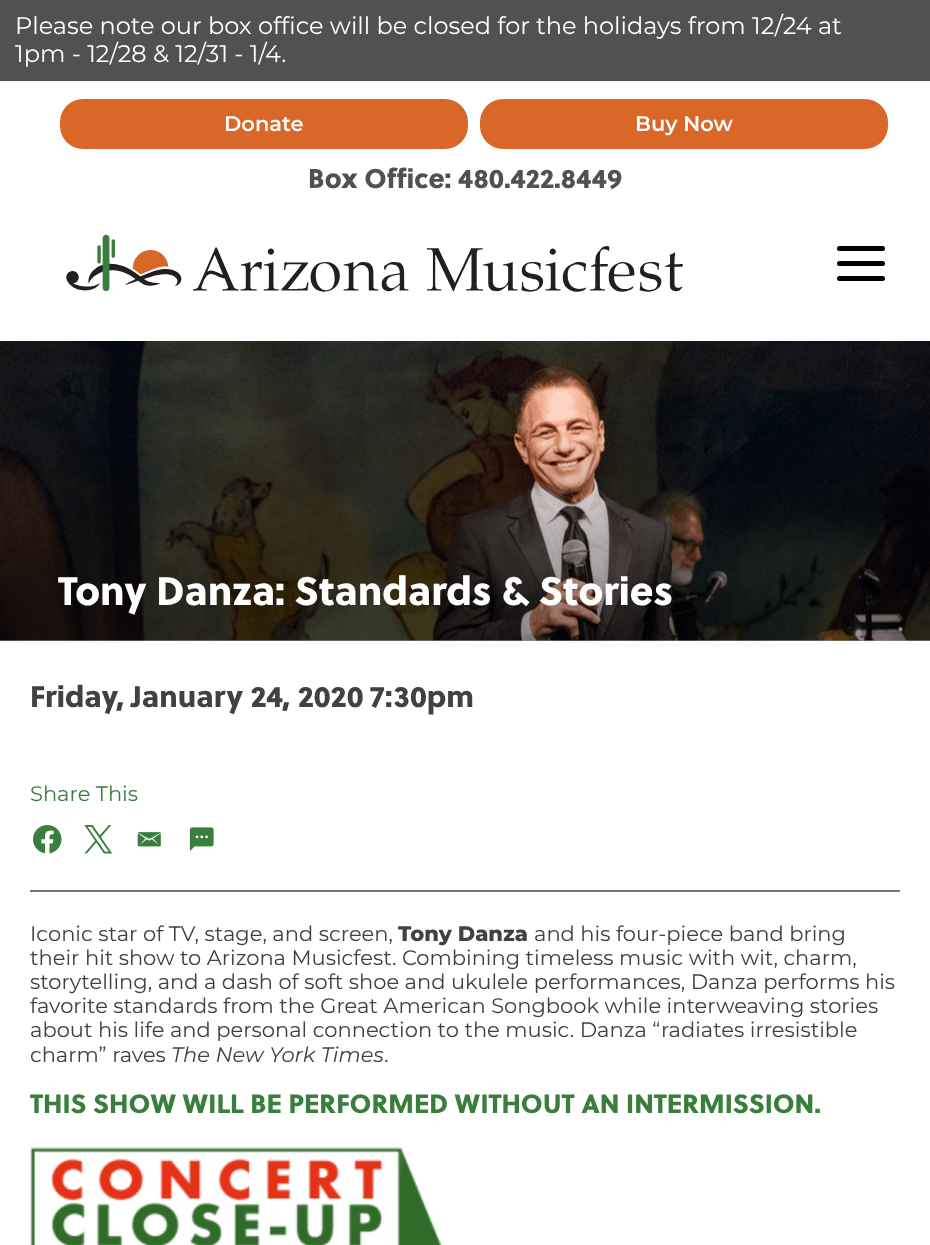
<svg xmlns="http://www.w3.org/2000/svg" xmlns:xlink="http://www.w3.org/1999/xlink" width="930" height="1245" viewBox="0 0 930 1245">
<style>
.cls-1{font:24px Montserrat;fill:#ffffff}
.cls-2{font:600 21px Montserrat;fill:#ffffff}
.cls-3{font:800 27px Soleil;fill:#515151}
.cls-4{font:800 39.6px Soleil;fill:#ffffff}
.cls-5{font:800 29.75px Soleil;fill:#414042}
.cls-6{font:21px Montserrat;fill:#3a7e3d}
.cls-7{font:21px Montserrat;fill:#414042}
.cls-8{font:800 21px Montserrat;fill:#414042}
.cls-9{font:italic 100 21px Montserrat;fill:#414042}
.cls-10{font:800 26.4px Soleil;fill:#3a7e3d}
</style>
<defs>
<linearGradient id="g1" gradientUnits="userSpaceOnUse" x1="465" y1="641" x2="465" y2="401"><stop offset="0.1" stop-color="#000000" stop-opacity="0.4"/><stop offset="0.4" stop-color="#000000" stop-opacity="0.3"/><stop offset="0.9" stop-color="#000000" stop-opacity="0"/></linearGradient>
</defs>
<rect width="100%" height="100%" fill="#ffffff"/>
<rect fill="#515151" x="0" y="0" width="930" height="81"/>
<rect fill="#d86728" x="60" y="99" width="408" height="50" rx="23"/>
<rect fill="#d86728" x="480" y="99" width="408" height="50" rx="23"/>
<image xlink:href="image0.png" x="66" y="234" width="617" height="58"/>
<rect fill="#000000" x="837" y="261" width="48" height="5" rx="2.5"/>
<rect fill="#000000" x="837" y="246" width="48" height="5" rx="2.5"/>
<rect fill="#000000" x="837" y="276" width="48" height="5" rx="2.5"/>
<image xlink:href="image1.png" x="0" y="341" width="930" height="300"/>
<rect fill="url(#g1)" x="0" y="434" width="930" height="207"/>
<rect fill="#74767b" x="30" y="890" width="870" height="2"/>
<image xlink:href="image2.png" x="33" y="825" width="29" height="29"/>
<image xlink:href="image3.png" x="84" y="825" width="29" height="29"/>
<image xlink:href="image4.png" x="137" y="832" width="24" height="15"/>
<image xlink:href="image5.png" x="189" y="827" width="25" height="24"/>
<image xlink:href="image6.png" x="30" y="1147" width="412" height="98"/>
<text class="cls-1"><tspan x="15" y="34">Please note our box office will be closed for the holidays from 12/24 at</tspan><tspan x="15" y="62">1pm - 12/28 &amp; 12/31 - 1/4.</tspan></text>
<text class="cls-2" x="224" y="131">Donate</text>
<text class="cls-2" x="635" y="131">Buy Now</text>
<text class="cls-3" x="308" y="188">Box Office: 480.422.8449</text>
<text class="cls-4" x="58" y="605">Tony Danza: Standards &amp; Stories</text>
<text class="cls-5" x="30" y="707">Friday, January 24, 2020</text>
<text class="cls-5" x="370" y="707">7:30pm</text>
<text class="cls-6" x="30" y="801">Share This</text>
<text class="cls-7" x="30" y="941">Iconic star of TV, stage, and screen,</text>
<text class="cls-8" x="398" y="941">Tony Danza</text>
<text class="cls-7" x="534" y="941">and his four-piece band bring</text>
<text class="cls-7"><tspan x="30" y="965">their hit show to Arizona Musicfest. Combining timeless music with wit, charm,</tspan><tspan x="30" y="989">storytelling, and a dash of soft shoe and ukulele performances, Danza performs his</tspan><tspan x="30" y="1013">favorite standards from the Great American Songbook while interweaving stories</tspan><tspan x="30" y="1037">about his life and personal connection to the music. Danza “radiates irresistible</tspan><tspan x="30" y="1062">charm” raves</tspan></text>
<text class="cls-9" x="171" y="1062">The New York Times</text>
<text class="cls-7" x="384" y="1062">.</text>
<text class="cls-10" x="30" y="1113">THIS SHOW WILL BE PERFORMED WITHOUT AN INTERMISSION.</text>
</svg>
